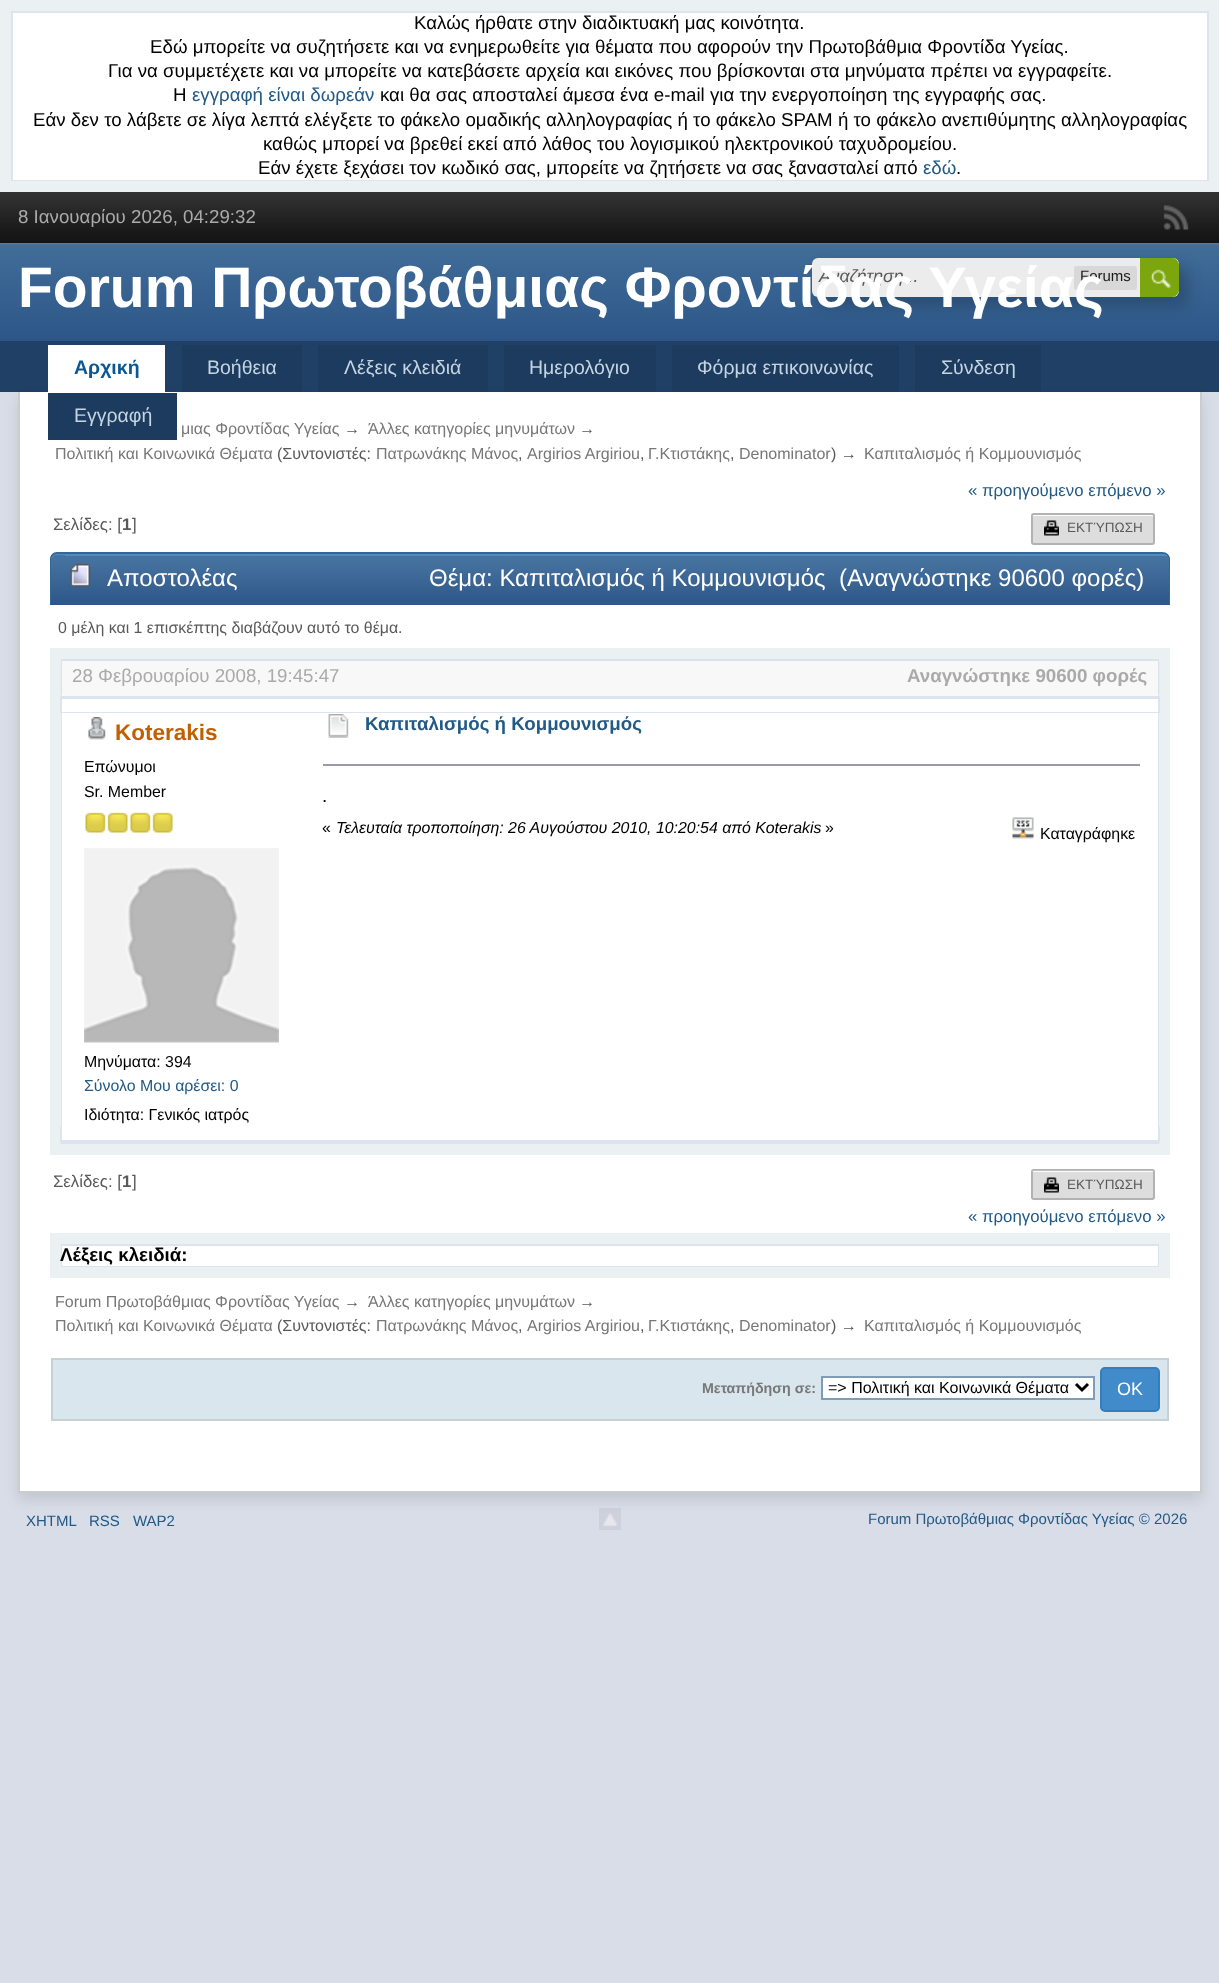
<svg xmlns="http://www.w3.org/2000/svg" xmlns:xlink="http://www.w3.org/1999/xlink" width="1219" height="1983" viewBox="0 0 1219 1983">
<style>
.cls-1{font:18.72px Liberation Sans;fill:#000000}
.cls-2{font:18.72px Liberation Sans;fill:#225985}
.cls-3{font:18.72px Liberation Sans;fill:#aaaaaa}
.cls-4{font:italic 17.75px Liberation Sans;fill:#595959}
.cls-5{font:15px Liberation Sans;fill:#1a1a1a}
.cls-6{font:bold 57px Liberation Sans;fill:#ffffff}
.cls-7{font:bold 19.5px Liberation Sans;fill:#0b5794}
.cls-8{font:19.5px Liberation Sans;fill:#c5d5e2}
.cls-9{font:16px Liberation Sans;fill:#777777}
.cls-10{font:16px Liberation Sans;fill:#595959}
.cls-11{font:16.8px Liberation Sans;fill:#225985}
.cls-12{font:16.8px Liberation Sans;fill:#595959}
.cls-13{font:bold 16.8px Liberation Sans;fill:#595959}
.cls-14{font:13.5px Liberation Sans;fill:#595959}
.cls-15{font:24px Liberation Sans;fill:#ffffff}
.cls-16{font:15.9px Liberation Sans;fill:#595959}
.cls-17{font:bold 18.72px Liberation Sans;fill:#aaaaaa}
.cls-18{font:bold 22.5px Liberation Sans;fill:#c06002}
.cls-19{font:15.9px Liberation Sans;fill:#000000}
.cls-20{font:15.9px Liberation Sans;fill:#225985}
.cls-21{font:bold 18.72px Liberation Sans;fill:#225985}
.cls-22{font:italic 15.9px Liberation Sans;fill:#000000}
.cls-23{font:bold 18.72px Liberation Sans;fill:#000000}
.cls-24{font:bold 14.25px Liberation Sans;fill:#777777}
.cls-25{font:16px Liberation Sans;fill:#000000}
.cls-26{font:18px Liberation Sans;fill:#ffffff}
.cls-27{font:15px Liberation Sans;fill:#225985}
</style>
<defs>
<linearGradient id="g1" gradientUnits="userSpaceOnUse" x1="610" y1="192" x2="610" y2="243"><stop offset="0" stop-color="#323232"/><stop offset="0.12" stop-color="#303030"/><stop offset="0.74" stop-color="#1a1a1a"/><stop offset="1" stop-color="#131313"/></linearGradient>
<linearGradient id="g2" gradientUnits="userSpaceOnUse" x1="610" y1="243" x2="610" y2="341"><stop offset="0" stop-color="#4f84af"/><stop offset="0.02" stop-color="#416d99"/><stop offset="1" stop-color="#2c5687"/></linearGradient>
<clipPath id="clip1"><path d="M58 552H1162C1166.5 552 1170 555.5 1170 560V605H50V560C50 555.5 53.5 552 58 552Z"/></clipPath>
<linearGradient id="g3" gradientUnits="userSpaceOnUse" x1="610" y1="553" x2="610" y2="605"><stop offset="0" stop-color="#4774a2"/><stop offset="0.21" stop-color="#44709e"/><stop offset="1" stop-color="#2c5687"/></linearGradient>
<linearGradient id="g4" gradientUnits="userSpaceOnUse" x1="617" y1="553" x2="617" y2="605"><stop offset="0" stop-color="#4774a2"/><stop offset="0.21" stop-color="#44709e"/><stop offset="1" stop-color="#2c5687"/></linearGradient>
<clipPath id="clip2"><path d="M57 554H1163C1166.5 554 1169 556.5 1169 560V605H51V560C51 556.5 53.5 554 57 554Z"/></clipPath>
<clipPath id="clip3"><rect x="60" y="696" width="1100" height="17"/></clipPath>
<clipPath id="clip4"><rect x="60" y="1127" width="1100" height="16"/></clipPath>
</defs>
<rect width="100%" height="100%" fill="#d8dde8"/>
<rect fill="#ffffff" stroke="#dbe4ef" stroke-width="2" x="12" y="12" width="1196" height="169"/>
<rect fill="none" stroke="#ebf0f3" stroke-width="11" x="5.5" y="5.5" width="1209" height="181"/>
<rect fill="url(#g1)" x="0" y="192" width="1219" height="51"/>
<image xlink:href="image0.png" x="1163" y="205" width="26" height="25"/>
<rect fill="url(#g2)" x="0" y="243" width="1219" height="98"/>
<rect fill="#000000" fill-opacity="0.2" filter="blur(7.5px)" x="819" y="266" width="368" height="39" rx="6"/>
<rect fill="#ececec" x="812" y="258" width="367" height="39" rx="6"/>
<rect fill="#d8d8d8" x="1074" y="266" width="63" height="24" rx="3"/>
<path fill="#7ba60d" d="M1140 258H1171C1175.5 258 1179 261.5 1179 266V289C1179 293.5 1175.5 297 1171 297H1140Z"/>
<image xlink:href="image1.png" x="1150" y="269" width="22" height="20"/>
<path fill="none" stroke="#7ba60d" stroke-width="2" d="M1141 259H1171C1175 259 1178 262 1178 266V289C1178 293 1175 296 1171 296H1141Z"/>
<rect fill="#204066" x="0" y="341" width="1219" height="51"/>
<rect fill="#000000" fill-opacity="0.1" filter="blur(7px)" x="18" y="399" width="1184" height="1101"/>
<rect fill="#ffffff" x="48" y="345" width="117" height="47"/>
<rect fill="#1c3b5f" x="182" y="345" width="120" height="47"/>
<rect fill="#1c3b5f" x="318" y="345" width="170" height="47"/>
<rect fill="#1c3b5f" x="504" y="345" width="152" height="47"/>
<rect fill="#1c3b5f" x="672" y="345" width="227" height="47"/>
<rect fill="#1c3b5f" x="915" y="345" width="126" height="47"/>
<rect fill="#ffffff" x="20" y="392" width="1180" height="1099"/>
<rect fill="#1c3b5f" x="48" y="393" width="129" height="47"/>
<rect fill="#cccccc" x="1200" y="392" width="2" height="1101"/>
<rect fill="#cccccc" x="18" y="1491" width="1184" height="2"/>
<rect fill="#cccccc" x="18" y="392" width="2" height="1101"/>
<rect fill="#dddddd" x="1031" y="513" width="124" height="32" rx="3"/>
<path fill="#fcfcfc" d="M1034 516H1152L1154 517V518C1154 517 1154 515 1152 515H1034C1032 515 1032 517 1032 518C1032 517 1033 516 1034 516Z"/>
<rect fill="none" stroke="#969696" stroke-opacity="0.6" stroke-width="2" x="1032" y="514" width="122" height="30" rx="2"/>
<image xlink:href="image2.png" x="1044" y="520" width="15" height="16"/>
<g clip-path="url(#clip1)">
<rect fill="url(#g3)" x="50" y="554" width="1120" height="51"/>
</g>
<path fill="#528cbc" d="M57 555H1162C1166 555 1168 558 1168 561V605H1169V560C1169 557 1166 554 1163 554H57C54 554 51 557 51 560V561C51 558 54 555 57 555Z"/>
<path fill="#316897" fill-rule="evenodd" d="M57 552H1162C1167 552 1170 555 1170 560V604H50V560C50 555 53 552 57 552ZM57 554H1162C1166 554 1168 556 1168 560V604H51V560C51 556 54 554 57 554Z"/>
<path fill="url(#g4)" d="M65 554H1163C1166.5 554 1169 556.5 1169 560V605H65Z"/>
<g clip-path="url(#clip2)">
<rect fill="#528cbc" x="65" y="554" width="1104" height="2"/>
</g>
<image xlink:href="image3.png" x="70" y="563" width="21" height="24"/>
<rect fill="none" stroke="#dbe4ef" stroke-width="2" x="61" y="660" width="1098" height="484"/>
<rect fill="none" stroke="#ebf0f3" stroke-width="11" x="55.5" y="653.5" width="1109" height="496"/>
<rect fill="#dcdcdc" fill-opacity="0.2" x="60" y="659" width="1100" height="37" rx="5"/>
<g clip-path="url(#clip3)">
<path fill="#dbe4ef" fill-rule="evenodd" d="M-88 548H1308V861H-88ZM62 699H1158V712H62Z"/>
</g>
<image xlink:href="image4.png" x="88" y="717" width="18" height="23"/>
<image xlink:href="image5.png" x="85" y="812" width="21" height="21"/>
<image xlink:href="image6.png" x="107" y="812" width="21" height="21"/>
<image xlink:href="image5.png" x="130" y="812" width="21" height="21"/>
<image xlink:href="image6.png" x="152" y="812" width="21" height="21"/>
<image xlink:href="image7.png" x="84" y="848" width="195" height="195"/>
<image xlink:href="image8.png" x="328" y="714" width="21" height="24"/>
<rect fill="#9999aa" x="323" y="764" width="817" height="2"/>
<image xlink:href="image9.png" x="1012" y="817" width="22" height="22"/>
<g clip-path="url(#clip4)">
<path fill="#dbe4ef" fill-rule="evenodd" d="M-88 978H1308V1292H-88ZM62 1126H1158V1140H62Z"/>
</g>
<rect fill="#dddddd" x="1031" y="1169" width="124" height="31" rx="3"/>
<path fill="#fcfcfc" d="M1034 1172H1152C1153 1172 1154 1172 1154 1173C1154 1172 1154 1170 1152 1170H1034C1032 1170 1032 1172 1032 1173C1032 1172 1033 1172 1034 1172Z"/>
<rect fill="none" stroke="#969696" stroke-opacity="0.6" stroke-width="2" x="1032" y="1170" width="122" height="29" rx="2"/>
<image xlink:href="image2.png" x="1044" y="1177" width="15" height="16"/>
<rect fill="none" stroke="#dbe4ef" stroke-width="2" x="61" y="1245" width="1098" height="22"/>
<rect fill="none" stroke="#ebf0f3" stroke-width="11" x="55.5" y="1238.5" width="1109" height="34"/>
<rect fill="#d9e6ed" stroke="#c6d0d5" stroke-width="2" x="52" y="1359" width="1116" height="61"/>
<rect fill="#ffffff" stroke="#7f9db9" stroke-width="2" x="822" y="1377" width="272" height="22"/>
<path fill="none" stroke="#000000" stroke-width="3" d="M1076 1384L1082 1390L1088 1384"/>
<rect fill="#428bca" stroke="#357ebd" stroke-width="2" x="1101" y="1368" width="58" height="43" rx="4"/>
<rect fill="#000000" fill-opacity="0.05" x="599" y="1508" width="22" height="22"/>
<image xlink:href="image10.png" x="603" y="1513" width="15" height="14"/>
<text class="cls-1" x="414" y="29">Καλώς ήρθατε στην διαδικτυακή μας κοινότητα.</text>
<text class="cls-1" x="150" y="53">Εδώ μπορείτε να συζητήσετε και να ενημερωθείτε για θέματα που αφορούν την Πρωτοβάθμια Φροντίδα Υγείας.</text>
<text class="cls-1" x="108" y="77">Για να συμμετέχετε και να μπορείτε να κατεβάσετε αρχεία και εικόνες που βρίσκονται στα μηνύματα πρέπει να εγγραφείτε.</text>
<text class="cls-1" x="173" y="101">Η</text>
<text class="cls-2" x="192" y="101">εγγραφή είναι δωρεάν</text>
<text class="cls-1" x="380" y="101">και θα σας αποσταλεί άμεσα ένα e-mail για την ενεργοποίηση της εγγραφής σας.</text>
<text class="cls-1" x="33" y="126">Εάν δεν το λάβετε σε λίγα λεπτά ελέγξετε το φάκελο ομαδικής αλληλογραφίας ή το φάκελο SPAM ή το φάκελο ανεπιθύμητης αλληλογραφίας</text>
<text class="cls-1" x="263" y="150">καθώς μπορεί να βρεθεί εκεί από λάθος του λογισμικού ηλεκτρονικού ταχυδρομείου.</text>
<text class="cls-1" x="258" y="174">Εάν έχετε ξεχάσει τον κωδικό σας, μπορείτε να ζητήσετε να σας ξανασταλεί από</text>
<text class="cls-2" x="923" y="174">εδώ</text>
<text class="cls-1" x="956" y="174">.</text>
<text class="cls-3" x="18" y="223">8 Ιανουαρίου 2026, 04:29:32</text>
<text class="cls-4" x="819" y="282">Αναζήτηση...</text>
<text class="cls-5" x="1080" y="281">Forums</text>
<text class="cls-6" x="18" y="307">Forum Πρωτοβάθμιας Φροντίδας Υγείας</text>
<text class="cls-7" x="74" y="374">Αρχική</text>
<text class="cls-8" x="207" y="374">Βοήθεια</text>
<text class="cls-8" x="344" y="374">Λέξεις κλειδιά</text>
<text class="cls-8" x="529" y="374">Ημερολόγιο</text>
<text class="cls-8" x="697" y="374">Φόρμα επικοινωνίας</text>
<text class="cls-8" x="941" y="374">Σύνδεση</text>
<text class="cls-8" x="74" y="422">Εγγραφή</text>
<text class="cls-9" x="181" y="434">μιας Φροντίδας Υγείας</text>
<text class="cls-10" x="344" y="434">→</text>
<text class="cls-9" x="368" y="434">Άλλες κατηγορίες μηνυμάτων</text>
<text class="cls-10" x="579" y="434">→</text>
<text class="cls-9" x="55" y="459">Πολιτική και Κοινωνικά Θέματα</text>
<text class="cls-10" x="277" y="459">(Συντονιστές:</text>
<text class="cls-9" x="376" y="459">Πατρωνάκης Μάνος</text>
<text class="cls-10" x="518" y="459">,</text>
<text class="cls-9" x="527" y="459">Argirios Argiriou</text>
<text class="cls-10" x="640" y="459">,</text>
<text class="cls-9" x="648" y="459">Γ.Κτιστάκης</text>
<text class="cls-10" x="730" y="459">,</text>
<text class="cls-9" x="739" y="459">Denominator</text>
<text class="cls-10" x="831" y="459">) →</text>
<text class="cls-9" x="864" y="459">Καπιταλισμός ή Κομμουνισμός</text>
<text class="cls-11" x="968" y="496">« προηγούμενο επόμενο »</text>
<text class="cls-12" x="53" y="530">Σελίδες: [</text>
<text class="cls-13" x="122" y="530">1</text>
<text class="cls-12" x="132" y="530">]</text>
<text class="cls-14" x="1067" y="532">ΕΚΤΎΠΩΣΗ</text>
<text class="cls-15" x="107" y="586">Αποστολέας</text>
<text class="cls-15" xml:space="preserve" x="429" y="586">Θέμα: Καπιταλισμός ή Κομμουνισμός  (Αναγνώστηκε 90600 φορές)</text>
<text class="cls-16" x="58" y="633">0 μέλη και 1 επισκέπτης διαβάζουν αυτό το θέμα.</text>
<text class="cls-3" x="72" y="682">28 Φεβρουαρίου 2008, 19:45:47</text>
<text class="cls-17" x="907" y="682">Αναγνώστηκε 90600 φορές</text>
<text class="cls-18" x="115" y="740">Koterakis</text>
<text class="cls-19"><tspan x="84" y="772">Επώνυμοι</tspan><tspan x="84" y="797">Sr. Member</tspan></text>
<text class="cls-19" x="84" y="1067">Μηνύματα: 394</text>
<text class="cls-20" x="84" y="1091">Σύνολο Μου αρέσει: 0</text>
<text class="cls-19" x="84" y="1120">Ιδιότητα: Γενικός ιατρός</text>
<text class="cls-21" x="365" y="730">Καπιταλισμός ή Κομμουνισμός</text>
<text class="cls-1" x="322" y="802">.</text>
<text class="cls-19" x="322" y="833">«</text>
<text class="cls-22" x="336" y="833">Τελευταία τροποποίηση: 26 Αυγούστου 2010, 10:20:54 από Koterakis</text>
<text class="cls-19" x="825" y="833">»</text>
<text class="cls-19" x="1040" y="839">Καταγράφηκε</text>
<text class="cls-12" x="53" y="1187">Σελίδες: [</text>
<text class="cls-13" x="122" y="1187">1</text>
<text class="cls-12" x="132" y="1187">]</text>
<text class="cls-14" x="1067" y="1189">ΕΚΤΎΠΩΣΗ</text>
<text class="cls-11" x="968" y="1222">« προηγούμενο επόμενο »</text>
<text class="cls-23" x="60" y="1261">Λέξεις κλειδιά:</text>
<text class="cls-9" x="55" y="1307">Forum Πρωτοβάθμιας Φροντίδας Υγείας</text>
<text class="cls-10" x="344" y="1307">→</text>
<text class="cls-9" x="368" y="1307">Άλλες κατηγορίες μηνυμάτων</text>
<text class="cls-10" x="579" y="1307">→</text>
<text class="cls-9" x="55" y="1331">Πολιτική και Κοινωνικά Θέματα</text>
<text class="cls-10" x="277" y="1331">(Συντονιστές:</text>
<text class="cls-9" x="376" y="1331">Πατρωνάκης Μάνος</text>
<text class="cls-10" x="518" y="1331">,</text>
<text class="cls-9" x="527" y="1331">Argirios Argiriou</text>
<text class="cls-10" x="640" y="1331">,</text>
<text class="cls-9" x="648" y="1331">Γ.Κτιστάκης</text>
<text class="cls-10" x="730" y="1331">,</text>
<text class="cls-9" x="739" y="1331">Denominator</text>
<text class="cls-10" x="831" y="1331">) →</text>
<text class="cls-9" x="864" y="1331">Καπιταλισμός ή Κομμουνισμός</text>
<text class="cls-24" x="702" y="1393">Μεταπήδηση σε:</text>
<text class="cls-25" x="828" y="1393">=&gt; Πολιτική και Κοινωνικά Θέματα</text>
<text class="cls-26" x="1117" y="1395">ΟΚ</text>
<text class="cls-27" x="26" y="1526">XHTML</text>
<text class="cls-27" x="89" y="1526">RSS</text>
<text class="cls-27" x="133" y="1526">WAP2</text>
<text class="cls-27" x="868" y="1524">Forum Πρωτοβάθμιας Φροντίδας Υγείας © 2026</text>
</svg>
